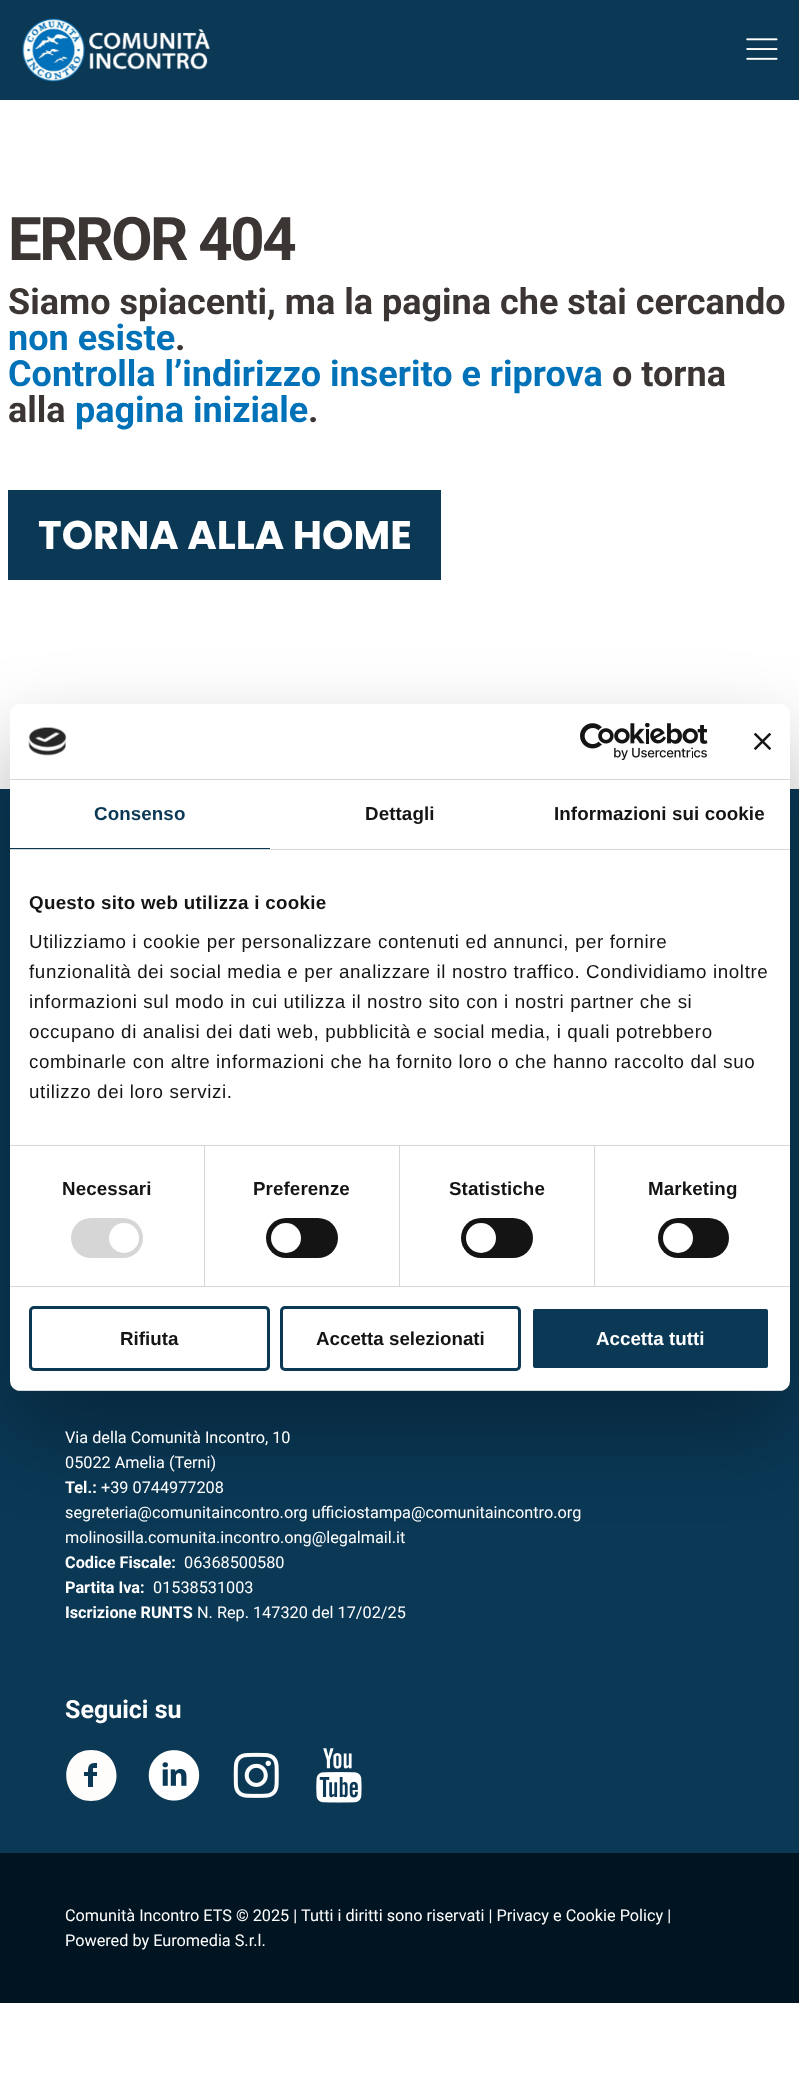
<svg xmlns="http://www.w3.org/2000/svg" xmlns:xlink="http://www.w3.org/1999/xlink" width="799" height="2094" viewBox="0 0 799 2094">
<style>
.cls-1{font:bold 60px Roboto;letter-spacing:-2.5px;fill:#3b3634}
.cls-2{font:bold 36px Roboto;fill:#3b3634}
.cls-3{font:bold 36px Roboto;fill:#0172b8}
.cls-4{font:bold 40px Poppins;fill:#ffffff}
.cls-5{font:16.25px Roboto;fill:#ffffff}
.cls-6{font:bold 16.25px Roboto;fill:#ffffff}
.cls-7{font:bold 25px Roboto;fill:#ffffff}
.cls-8{font:bold 18.75px Liberation Sans;letter-spacing:0.1px;fill:#0a3855}
.cls-9{font:bold 18.75px Liberation Sans;letter-spacing:0.1px;fill:#141414}
.cls-10{font:bold 18.75px Liberation Sans;letter-spacing:0.3px;fill:#141414}
.cls-11{font:18.75px Liberation Sans;letter-spacing:0.62px;fill:#141414}
.cls-12{font:bold 18.75px Liberation Sans;fill:#141414}
.cls-13{font:bold 18.75px Liberation Sans;fill:#ffffff}
</style>
<defs>
<clipPath id="clip1"><rect x="10" y="704" width="780" height="687" rx="10"/></clipPath>
</defs>
<rect width="100%" height="100%" fill="#ffffff"/>
<rect fill="#0a3855" x="0" y="0" width="799" height="100"/>
<image xlink:href="image0.png" x="22" y="18" width="188" height="64"/>
<image xlink:href="image1.png" x="746" y="38" width="32" height="22"/>
<rect fill="#0a3855" x="8" y="490" width="433" height="90"/>
<rect fill="#0a3855" x="0" y="789" width="799" height="1064"/>
<path fill="#fffcfc" d="M91 1750C125 1750 125 1801 91 1801C58 1801 58 1750 91 1750ZM97 1768V1763C90 1763 88 1764 88 1772H84V1776H88V1787H93V1776H97V1772H93C93 1767 92 1768 97 1768Z"/>
<image xlink:href="image2.png" x="148" y="1750" width="52" height="51"/>
<image xlink:href="image3.png" x="233" y="1752" width="46" height="46"/>
<image xlink:href="image4.png" x="316" y="1748" width="46" height="55"/>
<rect fill="#001421" x="0" y="1853" width="799" height="150"/>
<rect fill="#000000" fill-opacity="0.3" filter="blur(42.5px)" x="10" y="744" width="780" height="687" rx="10"/>
<rect fill="#ffffff" x="10" y="704" width="780" height="687" rx="10"/>
<rect fill="#d6d6d6" x="10" y="779" width="780" height="1"/>
<image xlink:href="image5.png" x="28" y="727" width="39" height="29"/>
<image xlink:href="image6.png" x="580" y="723" width="128" height="37"/>
<image xlink:href="image7.png" x="754" y="733" width="17" height="17"/>
<rect fill="#d6d6d6" x="10" y="849" width="780" height="1"/>
<rect fill="#0a3855" x="10" y="848" width="260" height="1"/>
<rect fill="#d6d6d6" x="10" y="1145" width="780" height="1"/>
<rect fill="#d6d6d6" x="10" y="1286" width="780" height="1"/>
<rect fill="#d6d6d6" x="204" y="1146" width="1" height="140"/>
<rect fill="#d6d6d6" x="71" y="1218" width="72" height="40" rx="20"/>
<circle fill="#ffffff" cx="124" cy="1238" r="15"/>
<rect fill="#d6d6d6" x="399" y="1146" width="1" height="140"/>
<rect fill="#141414" x="266" y="1218" width="72" height="40" rx="20"/>
<circle fill="#ffffff" cx="286" cy="1238" r="15"/>
<rect fill="#d6d6d6" x="594" y="1146" width="1" height="140"/>
<rect fill="#141414" x="461" y="1218" width="72" height="40" rx="20"/>
<circle fill="#ffffff" cx="481" cy="1238" r="15"/>
<rect fill="#141414" x="658" y="1218" width="71" height="40" rx="20"/>
<circle fill="#ffffff" cx="678" cy="1238" r="15"/>
<g clip-path="url(#clip1)">
<rect fill="#d6d6d6" x="10" y="1390" width="780" height="1"/>
</g>
<rect fill="none" stroke="#0a3855" stroke-width="3" x="30.5" y="1307.5" width="238" height="62" rx="3.5"/>
<rect fill="none" stroke="#0a3855" stroke-width="3" x="281.5" y="1307.5" width="238" height="62" rx="3.5"/>
<rect fill="#0a3855" stroke="#ffffff" stroke-width="3" x="531.5" y="1307.5" width="238" height="62" rx="3.5"/>
<text class="cls-1" x="8" y="260">ERROR 404</text>
<text class="cls-2" x="8" y="314">Siamo spiacenti, ma la pagina che stai cercando</text>
<text class="cls-3" x="8" y="350">non esiste</text>
<text class="cls-2" x="175" y="350">.</text>
<text class="cls-3" x="8" y="386">Controlla l’indirizzo inserito e riprova</text>
<text class="cls-2" x="612" y="386">o torna</text>
<text class="cls-2" x="8" y="422">alla</text>
<text class="cls-3" x="75" y="422">pagina iniziale</text>
<text class="cls-2" x="308" y="422">.</text>
<text class="cls-4" x="38" y="549">TORNA ALLA HOME</text>
<text class="cls-5"><tspan x="65" y="1443">Via della Comunità Incontro, 10</tspan><tspan x="65" y="1468">05022 Amelia (Terni)</tspan></text>
<text class="cls-6" x="65" y="1493">Tel.:</text>
<text class="cls-5" x="101" y="1493">+39 0744977208</text>
<text class="cls-5"><tspan x="65" y="1518">segreteria@comunitaincontro.org ufficiostampa@comunitaincontro.org</tspan><tspan x="65" y="1543">molinosilla.comunita.incontro.ong@legalmail.it</tspan></text>
<text class="cls-6" x="65" y="1568">Codice Fiscale:</text>
<text class="cls-5" x="184" y="1568">06368500580</text>
<text class="cls-6" x="65" y="1593">Partita Iva:</text>
<text class="cls-5" x="153" y="1593">01538531003</text>
<text class="cls-6" x="65" y="1618">Iscrizione RUNTS</text>
<text class="cls-5" x="197" y="1618">N. Rep. 147320 del 17/02/25</text>
<text class="cls-7" x="65" y="1718">Seguici su</text>
<text class="cls-5"><tspan x="65" y="1921">Comunità Incontro ETS © 2025 | Tutti i diritti sono riservati | Privacy e Cookie Policy |</tspan><tspan x="65" y="1946">Powered by Euromedia S.r.l.</tspan></text>
<text class="cls-8" x="94" y="820">Consenso</text>
<text class="cls-9" x="365" y="820">Dettagli</text>
<text class="cls-9" x="554" y="820">Informazioni sui cookie</text>
<text class="cls-10" x="29" y="909">Questo sito web utilizza i cookie</text>
<text class="cls-11"><tspan x="29" y="948">Utilizziamo i cookie per personalizzare contenuti ed annunci, per fornire</tspan><tspan x="29" y="978">funzionalità dei social media e per analizzare il nostro traffico. Condividiamo inoltre</tspan><tspan x="29" y="1008">informazioni sul modo in cui utilizza il nostro sito con i nostri partner che si</tspan><tspan x="29" y="1038">occupano di analisi dei dati web, pubblicità e social media, i quali potrebbero</tspan><tspan x="29" y="1068">combinarle con altre informazioni che ha fornito loro o che hanno raccolto dal suo</tspan><tspan x="29" y="1098">utilizzo dei loro servizi.</tspan></text>
<text class="cls-9" x="62" y="1195">Necessari</text>
<text class="cls-9" x="253" y="1195">Preferenze</text>
<text class="cls-9" x="449" y="1195">Statistiche</text>
<text class="cls-9" x="648" y="1195">Marketing</text>
<text class="cls-12" x="120" y="1345">Rifiuta</text>
<text class="cls-12" x="316" y="1345">Accetta selezionati</text>
<text class="cls-13" x="596" y="1345">Accetta tutti</text>
</svg>
